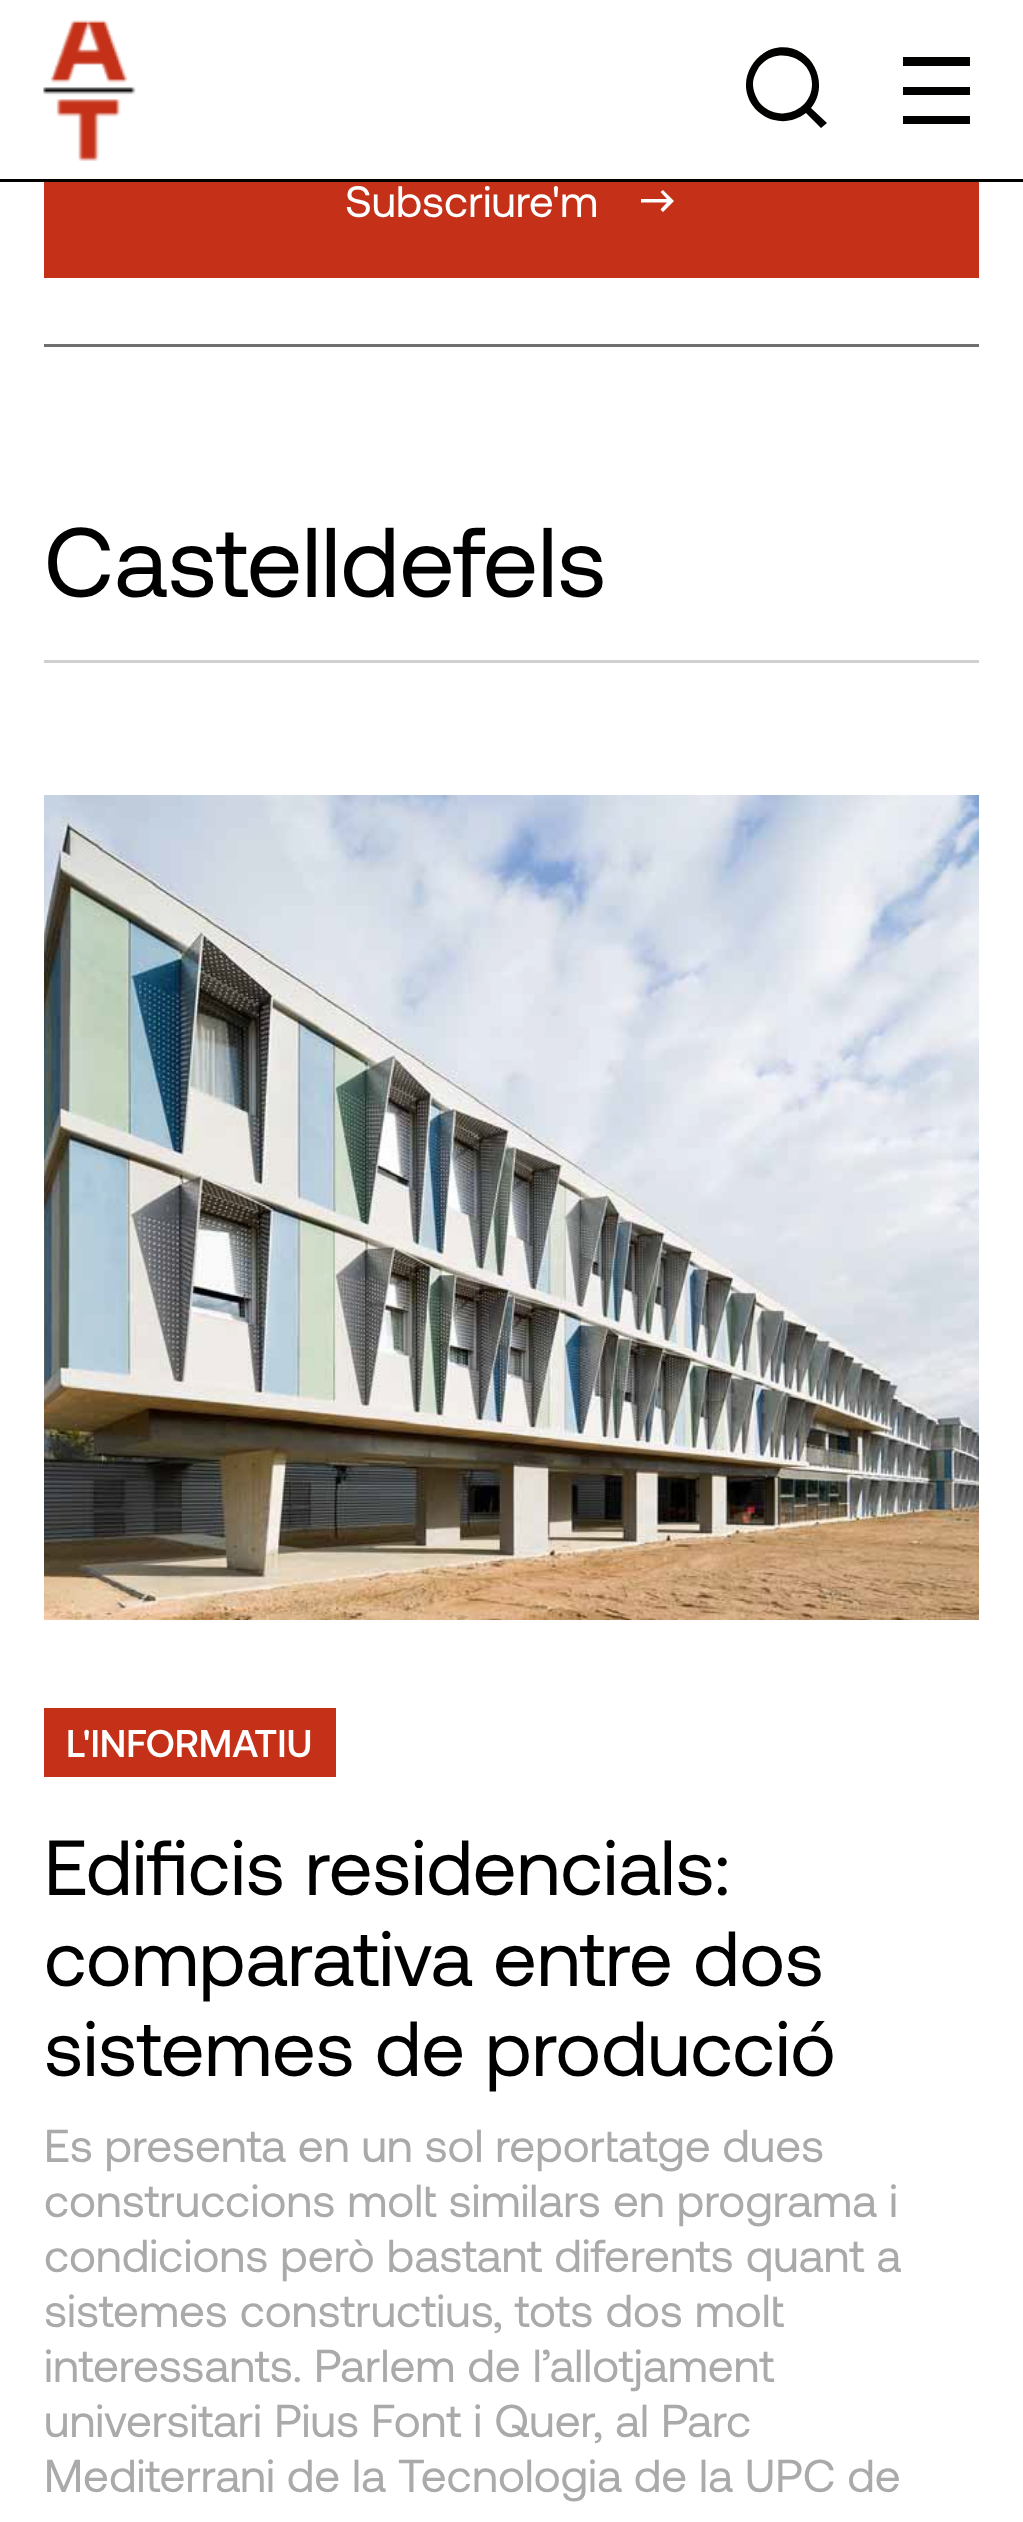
<svg xmlns="http://www.w3.org/2000/svg" xmlns:xlink="http://www.w3.org/1999/xlink" width="1023" height="2522" viewBox="0 0 1023 2522">
<style>
.cls-1{font:44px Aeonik;fill:#ffffff}
.cls-2{font:98.75px Aeonik;fill:#000000}
.cls-3{font:500 38.5px Aeonik;fill:#ffffff}
.cls-4{font:78px Aeonik;fill:#000000}
.cls-5{font:46.2px Aeonik;fill:#aaaaaa}
</style>
<rect width="100%" height="100%" fill="#ffffff"/>
<rect fill="#010100" x="0" y="179" width="1023" height="3"/>
<image xlink:href="image0.png" x="43" y="20" width="93" height="141"/>
<path fill="#010100" d="M812 84C812 57 776 45 759 67C756 72 753 78 753 84C753 91 756 97 759 102C776 124 812 112 812 84ZM806 113C797 120 785 123 774 120C766 118 758 113 753 106C730 74 768 32 802 53C820 65 825 91 811 108L827 123L821 128Z"/>
<path fill="#010100" d="M970 57V66H903V57ZM970 87V95H903V87ZM970 124V116H903V124Z"/>
<rect fill="#6f6f6f" x="44" y="344" width="935" height="3"/>
<rect fill="#c43118" x="44" y="182" width="935" height="96"/>
<path fill="#ffffff" d="M671.5 198.5L674 201L663 212L660.5 209.5L667 202.5H641V199H667L660.5 192L663 190Z"/>
<rect fill="#d0d0d0" x="44" y="660" width="935" height="3"/>
<image xlink:href="image1.png" x="44" y="795" width="935" height="825"/>
<rect fill="#c43118" x="44" y="1708" width="292" height="69"/>
<text class="cls-1" x="345" y="217">Subscriure'm</text>
<text class="cls-2" x="44" y="597">Castelldefels</text>
<text class="cls-3" x="66" y="1757">L'INFORMATIU</text>
<text class="cls-4"><tspan x="44" y="1895">Edificis residencials:</tspan><tspan x="44" y="1986">comparativa entre dos</tspan><tspan x="44" y="2076">sistemes de producció</tspan></text>
<text class="cls-5"><tspan x="44" y="2162" word-spacing="-0.25">Es presenta en un sol reportatge dues</tspan><tspan x="44" y="2217">construccions molt similars en programa i</tspan><tspan x="44" y="2272">condicions però bastant diferents quant a</tspan><tspan x="44" y="2327">sistemes constructius, tots dos molt</tspan><tspan x="44" y="2382">interessants. Parlem de l’allotjament</tspan><tspan x="44" y="2437">universitari Pius Font i Quer, al Parc</tspan><tspan x="44" y="2492" word-spacing="-0.25">Mediterrani de la Tecnologia de la UPC de</tspan></text>
</svg>
